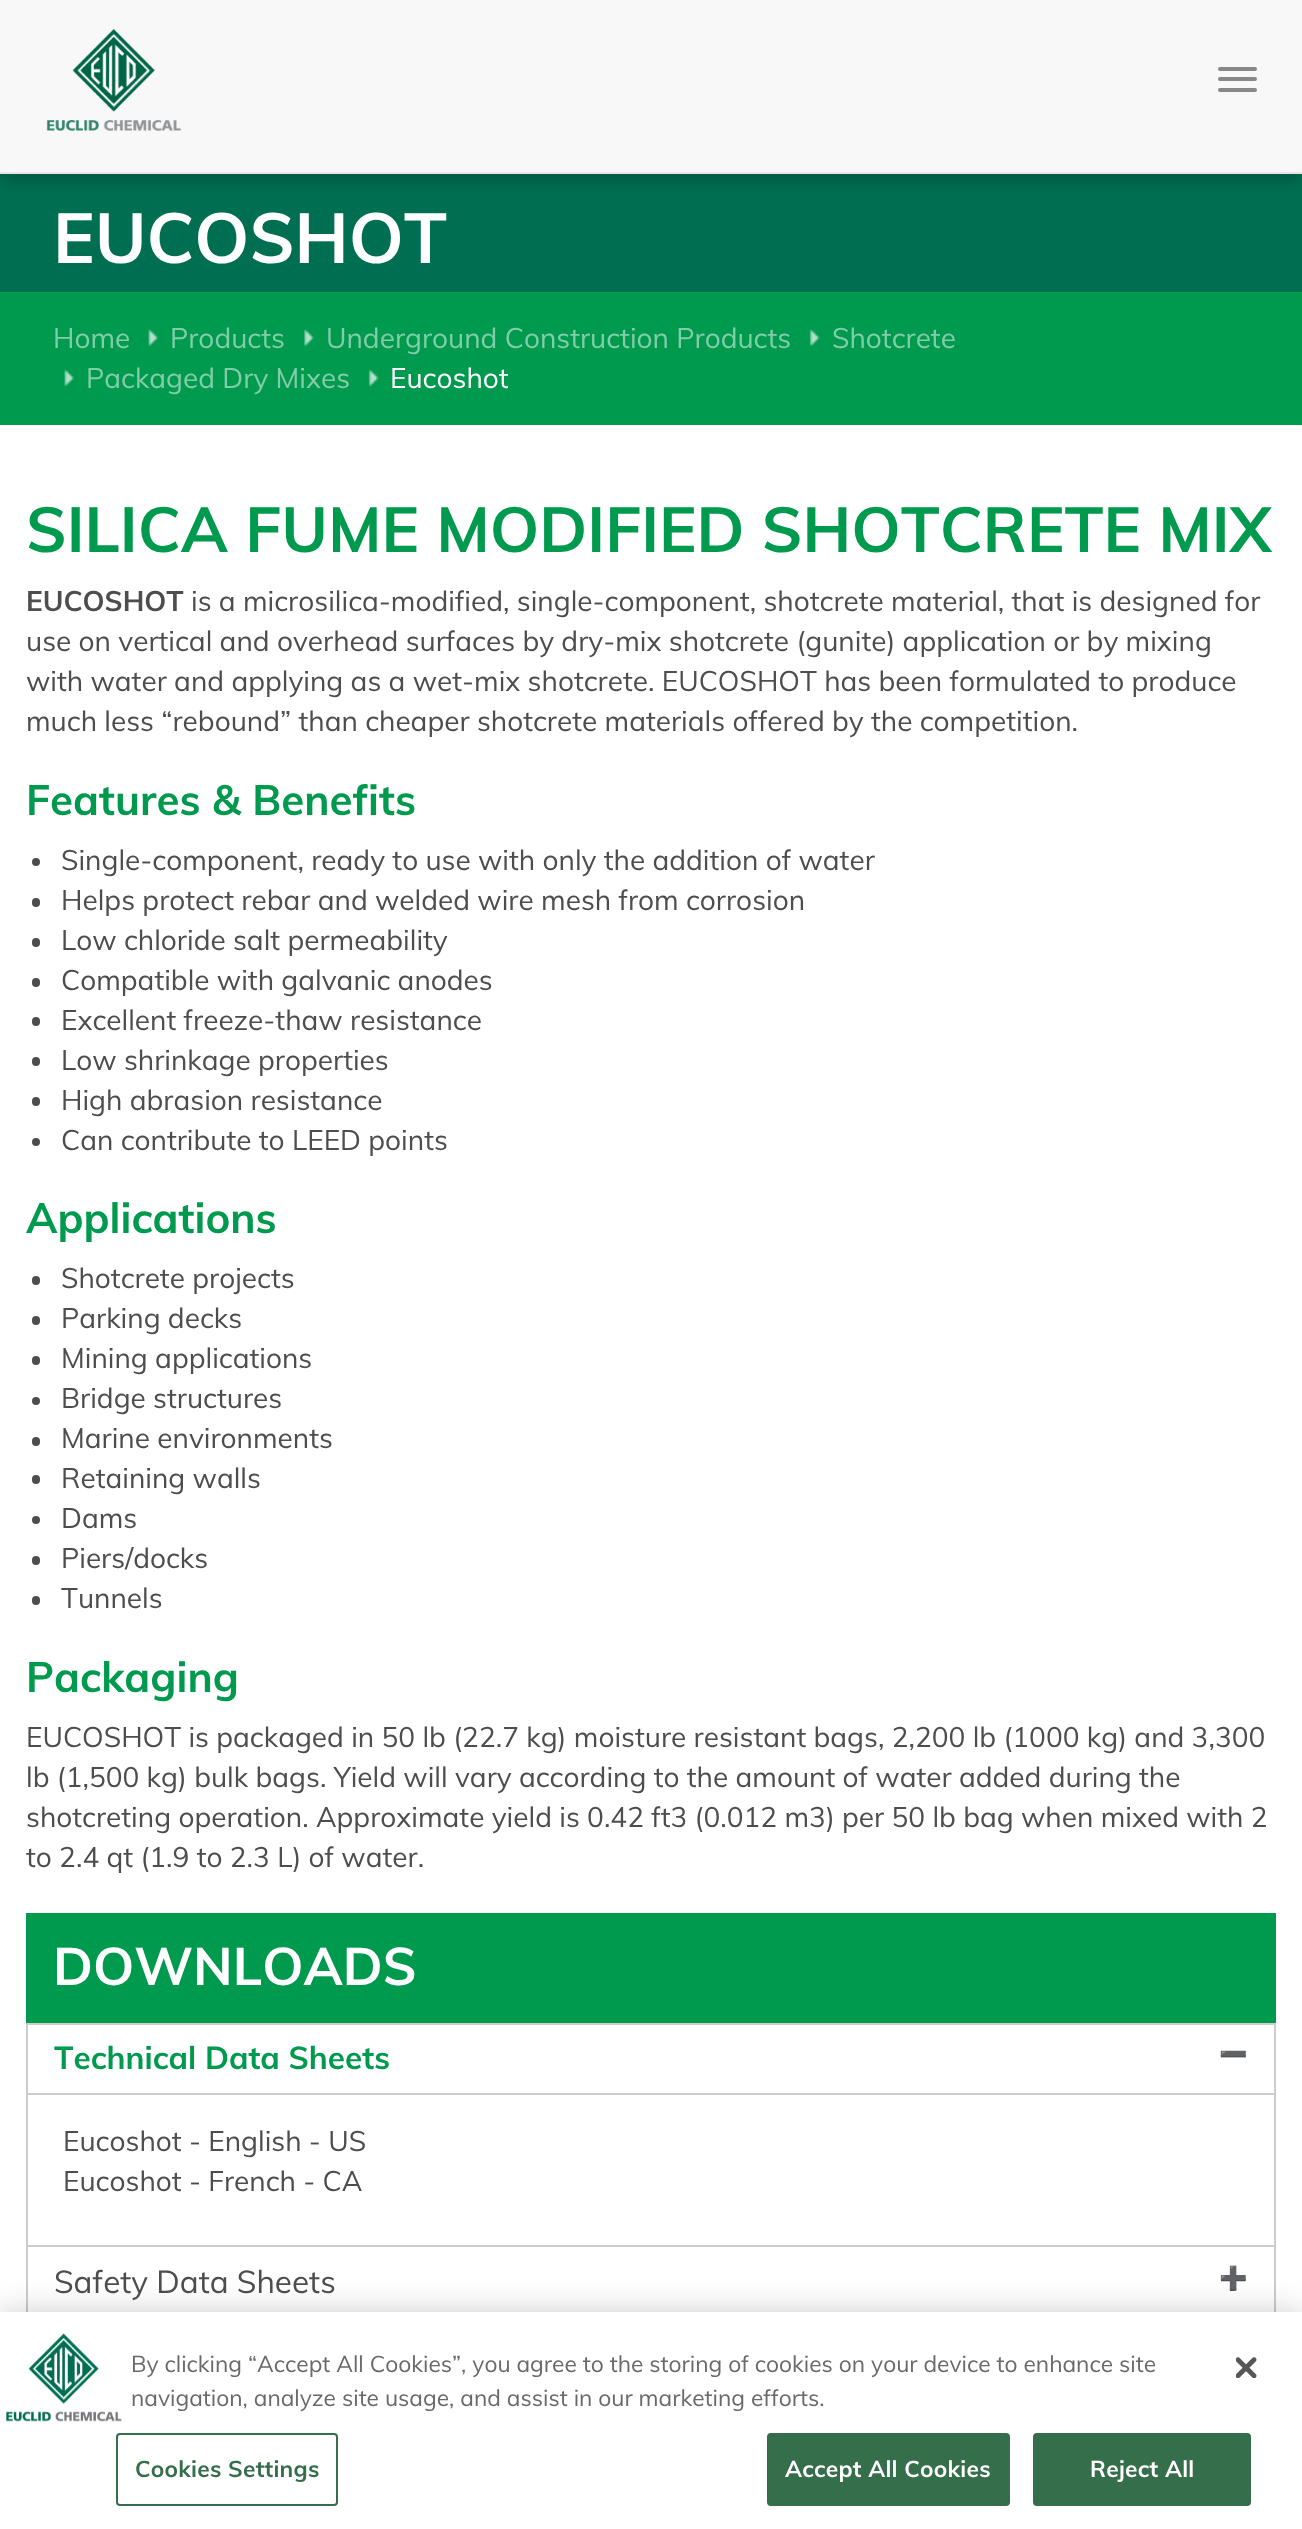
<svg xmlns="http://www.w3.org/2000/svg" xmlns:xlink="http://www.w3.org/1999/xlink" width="1302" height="2529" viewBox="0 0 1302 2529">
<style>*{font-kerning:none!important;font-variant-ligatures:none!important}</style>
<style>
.cls-1{font:bold 70px Muli;fill:#ffffff}
.cls-2{font:28px Muli;fill:#80cda7}
.cls-3{font:28px Muli;fill:#ffffff}
.cls-4{font:bold 63px Muli;fill:#009a4e}
.cls-5{font:bold 28px Muli;fill:#4d4d4d}
.cls-6{font:28px Muli;fill:#4d4d4d}
.cls-7{font:bold 42px Muli;fill:#009a4e}
.cls-8{font:bold 52.5px Muli;fill:#ffffff}
.cls-9{font:bold 31.5px Muli;fill:#009a4e}
.cls-10{font:bold 23px Noto Color Emoji;fill:#4d4d4d}
.cls-11{font:31.5px Muli;fill:#4d4d4d}
.cls-12{font:22.75px Muli;fill:#696969}
.cls-13{font:bold 22.75px Muli;letter-spacing:0.25px;fill:#346e4a}
.cls-14{font:bold 22.75px Muli;letter-spacing:0.25px;fill:#ffffff}
</style>
<rect width="100%" height="100%" fill="#ffffff"/>
<rect fill="#006f51" x="0" y="174" width="1302" height="118"/>
<rect fill="#000000" fill-opacity="0.24" filter="blur(9px)" x="0" y="5" width="1302" height="174"/>
<rect fill="#f8f8f8" x="0" y="0" width="1302" height="172"/>
<rect fill="#e7e7e7" x="0" y="172" width="1302" height="2"/>
<image xlink:href="image0.png" x="46" y="28" width="135" height="103"/>
<rect fill="#888888" x="1218" y="67" width="39" height="4" rx="2"/>
<rect fill="#888888" x="1218" y="77" width="39" height="4" rx="2"/>
<rect fill="#888888" x="1218" y="88" width="39" height="4" rx="2"/>
<rect fill="#009a4e" x="0" y="292" width="1302" height="133"/>
<image xlink:href="image1.png" x="148" y="329" width="10" height="18"/>
<image xlink:href="image2.png" x="304" y="329" width="10" height="18"/>
<image xlink:href="image3.png" x="809" y="329" width="11" height="18"/>
<image xlink:href="image4.png" x="64" y="369" width="10" height="18"/>
<image xlink:href="image5.png" x="368" y="369" width="11" height="18"/>
<circle fill="#4d4d4d" cx="36" cy="862" r="4"/>
<rect fill="#4d4d4d" x="32" y="898" width="8" height="9" rx="4"/>
<rect fill="#4d4d4d" x="32" y="938" width="8" height="9" rx="4"/>
<rect fill="#4d4d4d" x="32" y="978" width="8" height="9" rx="4"/>
<rect fill="#4d4d4d" x="32" y="1017" width="8" height="9" rx="4"/>
<rect fill="#4d4d4d" x="32" y="1057" width="8" height="9" rx="4"/>
<rect fill="#4d4d4d" x="32" y="1097" width="8" height="9" rx="4"/>
<circle fill="#4d4d4d" cx="36" cy="1142" r="4"/>
<rect fill="#4d4d4d" x="32" y="1276" width="8" height="9" rx="4"/>
<rect fill="#4d4d4d" x="32" y="1316" width="8" height="9" rx="4"/>
<rect fill="#4d4d4d" x="32" y="1356" width="8" height="9" rx="4"/>
<circle fill="#4d4d4d" cx="36" cy="1401" r="4"/>
<rect fill="#4d4d4d" x="32" y="1437" width="8" height="9" rx="4"/>
<rect fill="#4d4d4d" x="32" y="1475" width="8" height="9" rx="4"/>
<circle fill="#4d4d4d" cx="36" cy="1520" r="4"/>
<rect fill="#4d4d4d" x="32" y="1556" width="8" height="9" rx="4"/>
<rect fill="#4d4d4d" x="32" y="1596" width="8" height="9" rx="4"/>
<rect fill="#009a4e" x="26" y="1913" width="1250" height="110"/>
<rect fill="#cccccc" x="26" y="2023" width="1250" height="2"/>
<rect fill="#cccccc" x="1274" y="2023" width="2" height="289"/>
<rect fill="#cccccc" x="26" y="2023" width="2" height="289"/>
<rect fill="#cccccc" x="28" y="2093" width="1246" height="2"/>
<rect fill="#cccccc" x="28" y="2245" width="1246" height="2"/>
<rect fill="#000000" fill-opacity="0.2" filter="blur(16px)" x="0" y="2312" width="1302" height="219"/>
<rect fill="#ffffff" x="0" y="2312" width="1302" height="217"/>
<image xlink:href="image6.png" x="6" y="2333" width="116" height="89"/>
<rect fill="none" stroke="#346e4a" stroke-width="2" x="117" y="2434" width="220" height="71" rx="3"/>
<rect fill="#346e4a" stroke="#346e4a" stroke-width="2" x="768" y="2434" width="241" height="71" rx="3"/>
<rect fill="#346e4a" stroke="#346e4a" stroke-width="2" x="1034" y="2434" width="216" height="71" rx="3"/>
<image xlink:href="image7.png" x="1236" y="2357" width="21" height="21"/>
<text class="cls-1" x="53" y="263">EUCOSHOT</text>
<text class="cls-2" x="53" y="348">Home</text>
<text class="cls-2" x="170" y="348">Products</text>
<text class="cls-2" x="326" y="348">Underground Construction Products</text>
<text class="cls-2" x="832" y="348">Shotcrete</text>
<text class="cls-2" x="86" y="388">Packaged Dry Mixes</text>
<text class="cls-3" x="390" y="388">Eucoshot</text>
<text class="cls-4" x="26" y="552">SILICA FUME MODIFIED SHOTCRETE MIX</text>
<text class="cls-5" x="26" y="611">EUCOSHOT</text>
<text class="cls-6" x="191" y="611">is a microsilica-modified, single-component, shotcrete material, that is designed for</text>
<text class="cls-6"><tspan x="26" y="651">use on vertical and overhead surfaces by dry-mix shotcrete (gunite) application or by mixing</tspan><tspan x="26" y="691">with water and applying as a wet-mix shotcrete. EUCOSHOT has been formulated to produce</tspan><tspan x="26" y="731">much less “rebound” than cheaper shotcrete materials offered by the competition.</tspan></text>
<text class="cls-7" x="26" y="815">Features &amp; Benefits</text>
<text class="cls-6"><tspan x="61" y="870">Single-component, ready to use with only the addition of water</tspan><tspan x="61" y="910">Helps protect rebar and welded wire mesh from corrosion</tspan><tspan x="61" y="950">Low chloride salt permeability</tspan><tspan x="61" y="990">Compatible with galvanic anodes</tspan><tspan x="61" y="1030">Excellent freeze-thaw resistance</tspan><tspan x="61" y="1070">Low shrinkage properties</tspan><tspan x="61" y="1110">High abrasion resistance</tspan><tspan x="61" y="1150">Can contribute to LEED points</tspan></text>
<text class="cls-7" x="26" y="1233">Applications</text>
<text class="cls-6"><tspan x="61" y="1288">Shotcrete projects</tspan><tspan x="61" y="1328">Parking decks</tspan><tspan x="61" y="1368">Mining applications</tspan><tspan x="61" y="1408">Bridge structures</tspan><tspan x="61" y="1448">Marine environments</tspan><tspan x="61" y="1488">Retaining walls</tspan><tspan x="61" y="1528">Dams</tspan><tspan x="61" y="1568">Piers/docks</tspan><tspan x="61" y="1608">Tunnels</tspan></text>
<text class="cls-7" x="26" y="1692">Packaging</text>
<text class="cls-6"><tspan x="26" y="1747">EUCOSHOT is packaged in 50 lb (22.7 kg) moisture resistant bags, 2,200 lb (1000 kg) and 3,300</tspan><tspan x="26" y="1787">lb (1,500 kg) bulk bags. Yield will vary according to the amount of water added during the</tspan><tspan x="26" y="1827">shotcreting operation. Approximate yield is 0.42 ft3 (0.012 m3) per 50 lb bag when mixed with 2</tspan><tspan x="26" y="1867">to 2.4 qt (1.9 to 2.3 L) of water.</tspan></text>
<text class="cls-8" x="53" y="1985">DOWNLOADS</text>
<text class="cls-9" x="54" y="2069">Technical Data Sheets</text>
<text class="cls-10" x="1219" y="2062">➖</text>
<text class="cls-6"><tspan x="63" y="2151">Eucoshot - English - US</tspan><tspan x="63" y="2191">Eucoshot - French - CA</tspan></text>
<text class="cls-11" x="54" y="2293">Safety Data Sheets</text>
<text class="cls-10" x="1219" y="2286">➕</text>
<text class="cls-12"><tspan x="131" y="2372">By clicking “Accept All Cookies”, you agree to the storing of cookies on your device to enhance site</tspan><tspan x="131" y="2406">navigation, analyze site usage, and assist in our marketing efforts.</tspan></text>
<text class="cls-13" x="135" y="2477">Cookies Settings</text>
<text class="cls-14" x="785" y="2477">Accept All Cookies</text>
<text class="cls-14" x="1090" y="2477">Reject All</text>
</svg>
